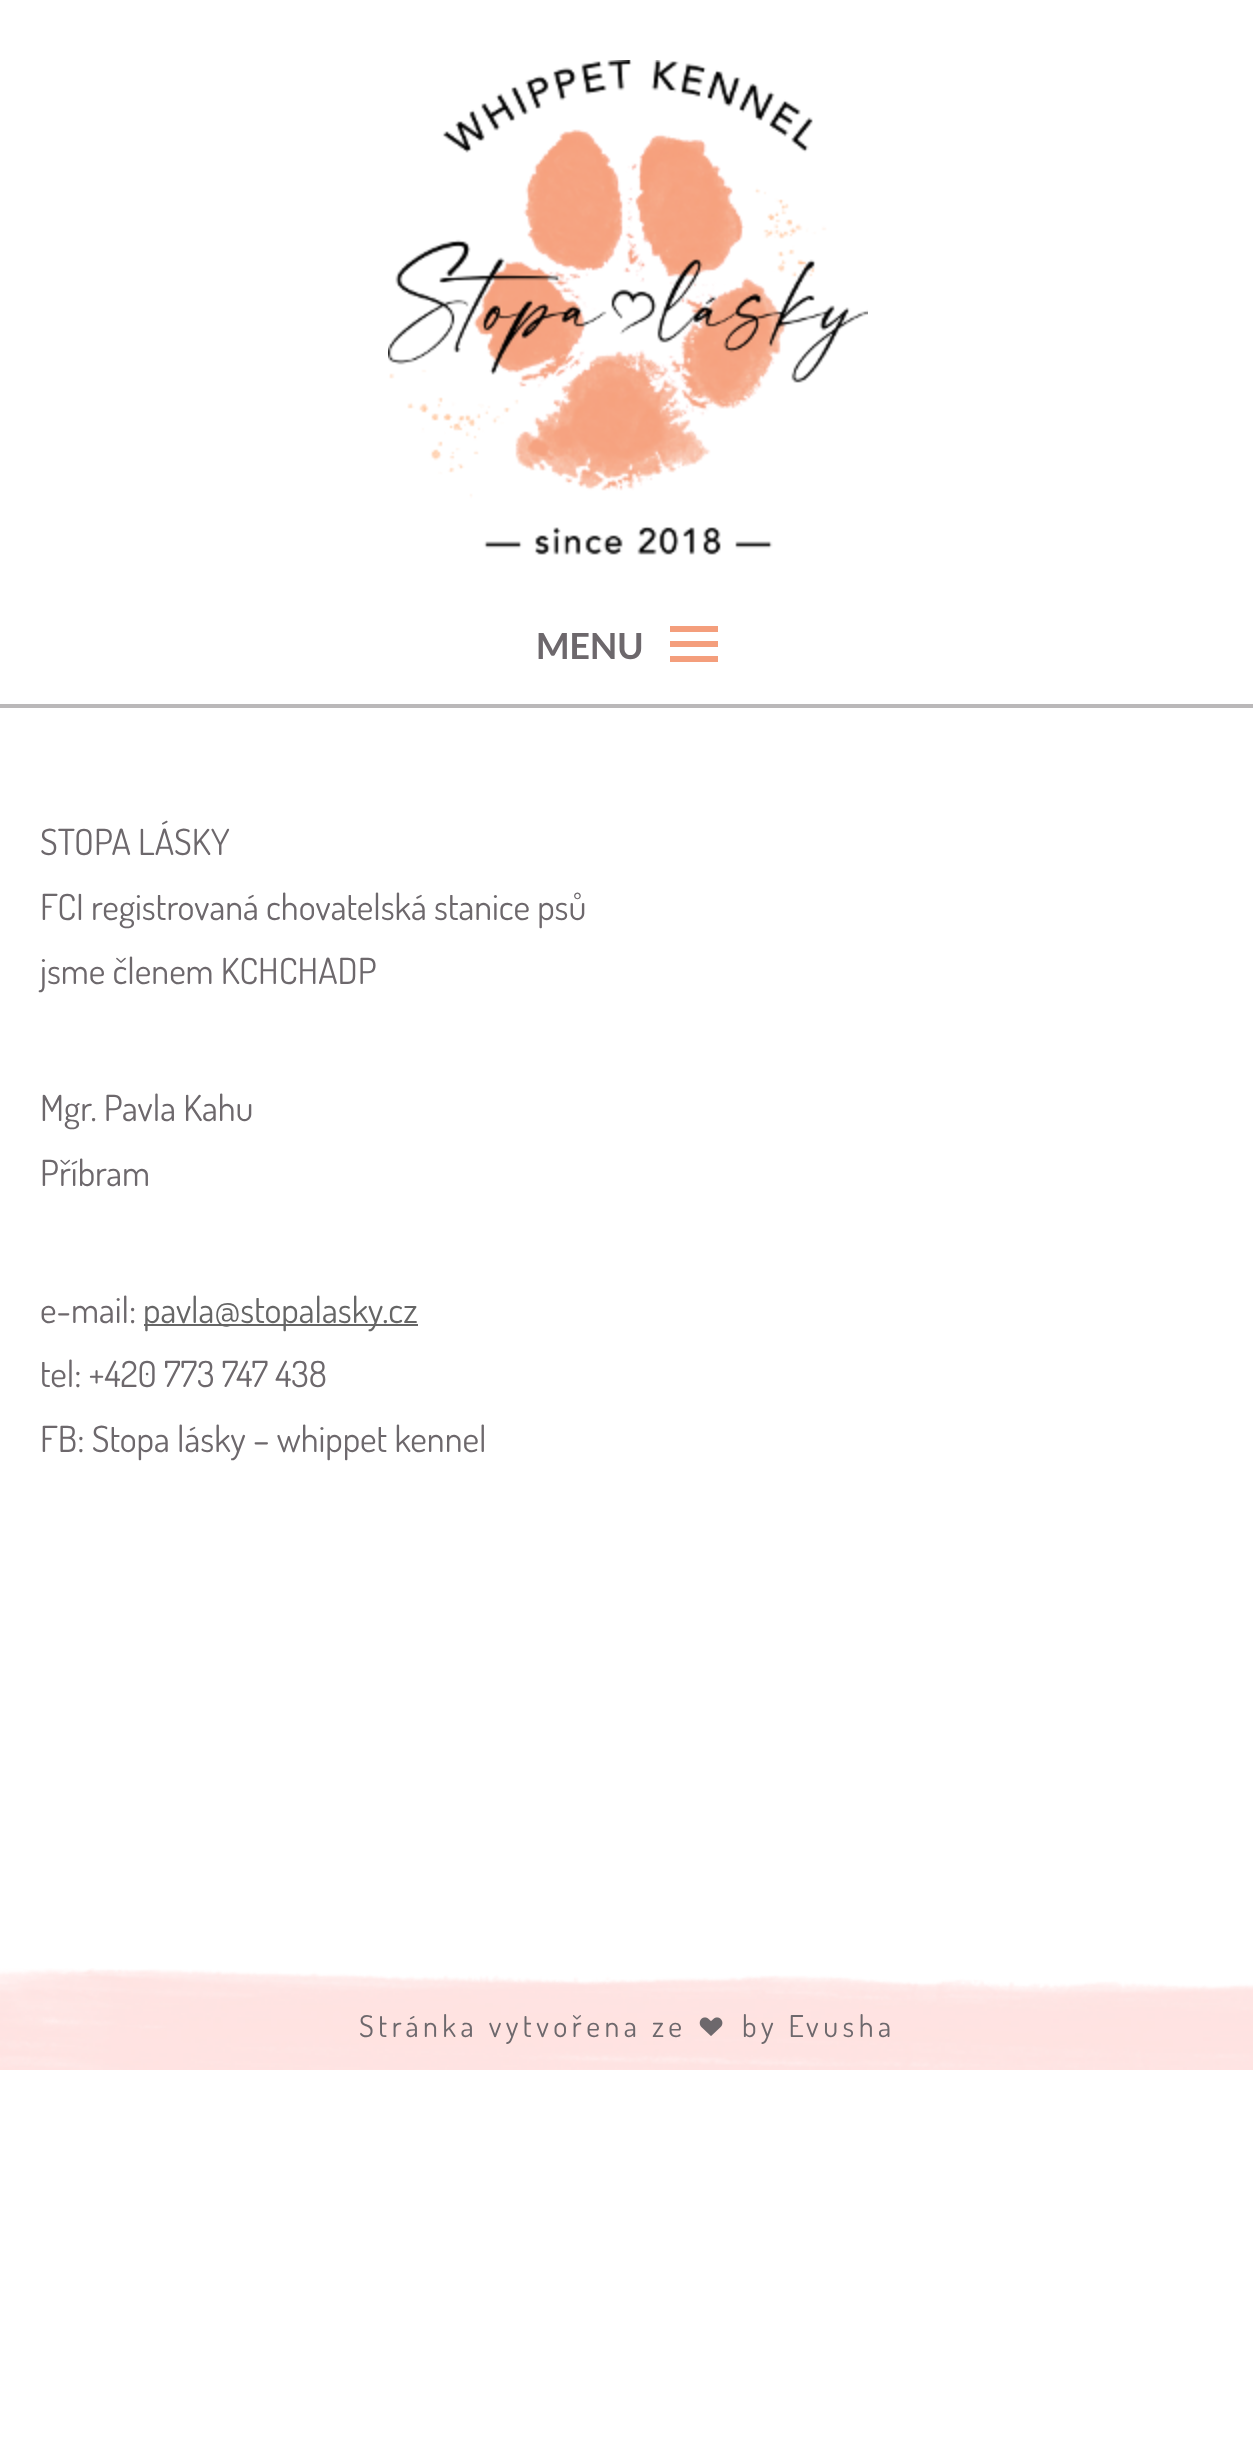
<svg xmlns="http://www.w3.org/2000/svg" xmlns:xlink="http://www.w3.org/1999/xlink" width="1253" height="2458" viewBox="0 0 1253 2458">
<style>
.cls-1{font:bold 36px Lato;fill:#6d686c}
.cls-2{font:36px Dosis;fill:#6d686c}
.cls-3{font:36px Dosis;fill:#666666}
.cls-4{font:30px Dosis;letter-spacing:4.5px;fill:#6d686c}
</style>
<rect width="100%" height="100%" fill="#ffffff"/>
<image xlink:href="image0.png" x="388" y="60" width="480" height="495"/>
<rect fill="#bab8b9" x="0" y="704" width="1253" height="4"/>
<path fill="#f49e7c" d="M670 662V656H718V662ZM670 626H718V632H670ZM670 647V641H718V647Z"/>
<rect fill="#666666" x="144" y="1324" width="274" height="2"/>
<image xlink:href="image1.png" x="0" y="1968" width="1253" height="102"/>
<image xlink:href="image2.png" x="699" y="2017" width="24" height="19"/>
<text class="cls-1" x="536" y="659">MENU</text>
<text class="cls-2"><tspan x="40" y="855">STOPA LÁSKY</tspan><tspan x="40" y="920">FCI registrovaná chovatelská stanice psů</tspan><tspan x="40" y="984">jsme členem KCHCHADP</tspan></text>
<text class="cls-2"><tspan x="40" y="1121">Mgr. Pavla Kahu</tspan><tspan x="40" y="1186">Příbram</tspan></text>
<text class="cls-2" x="40" y="1323">e-mail:</text>
<text class="cls-3" x="143" y="1323">pavla@stopalasky.cz</text>
<text class="cls-2"><tspan x="40" y="1387">tel: +420 773 747 438</tspan><tspan x="40" y="1452">FB: Stopa lásky – whippet kennel</tspan></text>
<text class="cls-4" x="359" y="2037">Stránka vytvořena ze</text>
<text class="cls-4" x="742" y="2037">by Evusha</text>
</svg>
